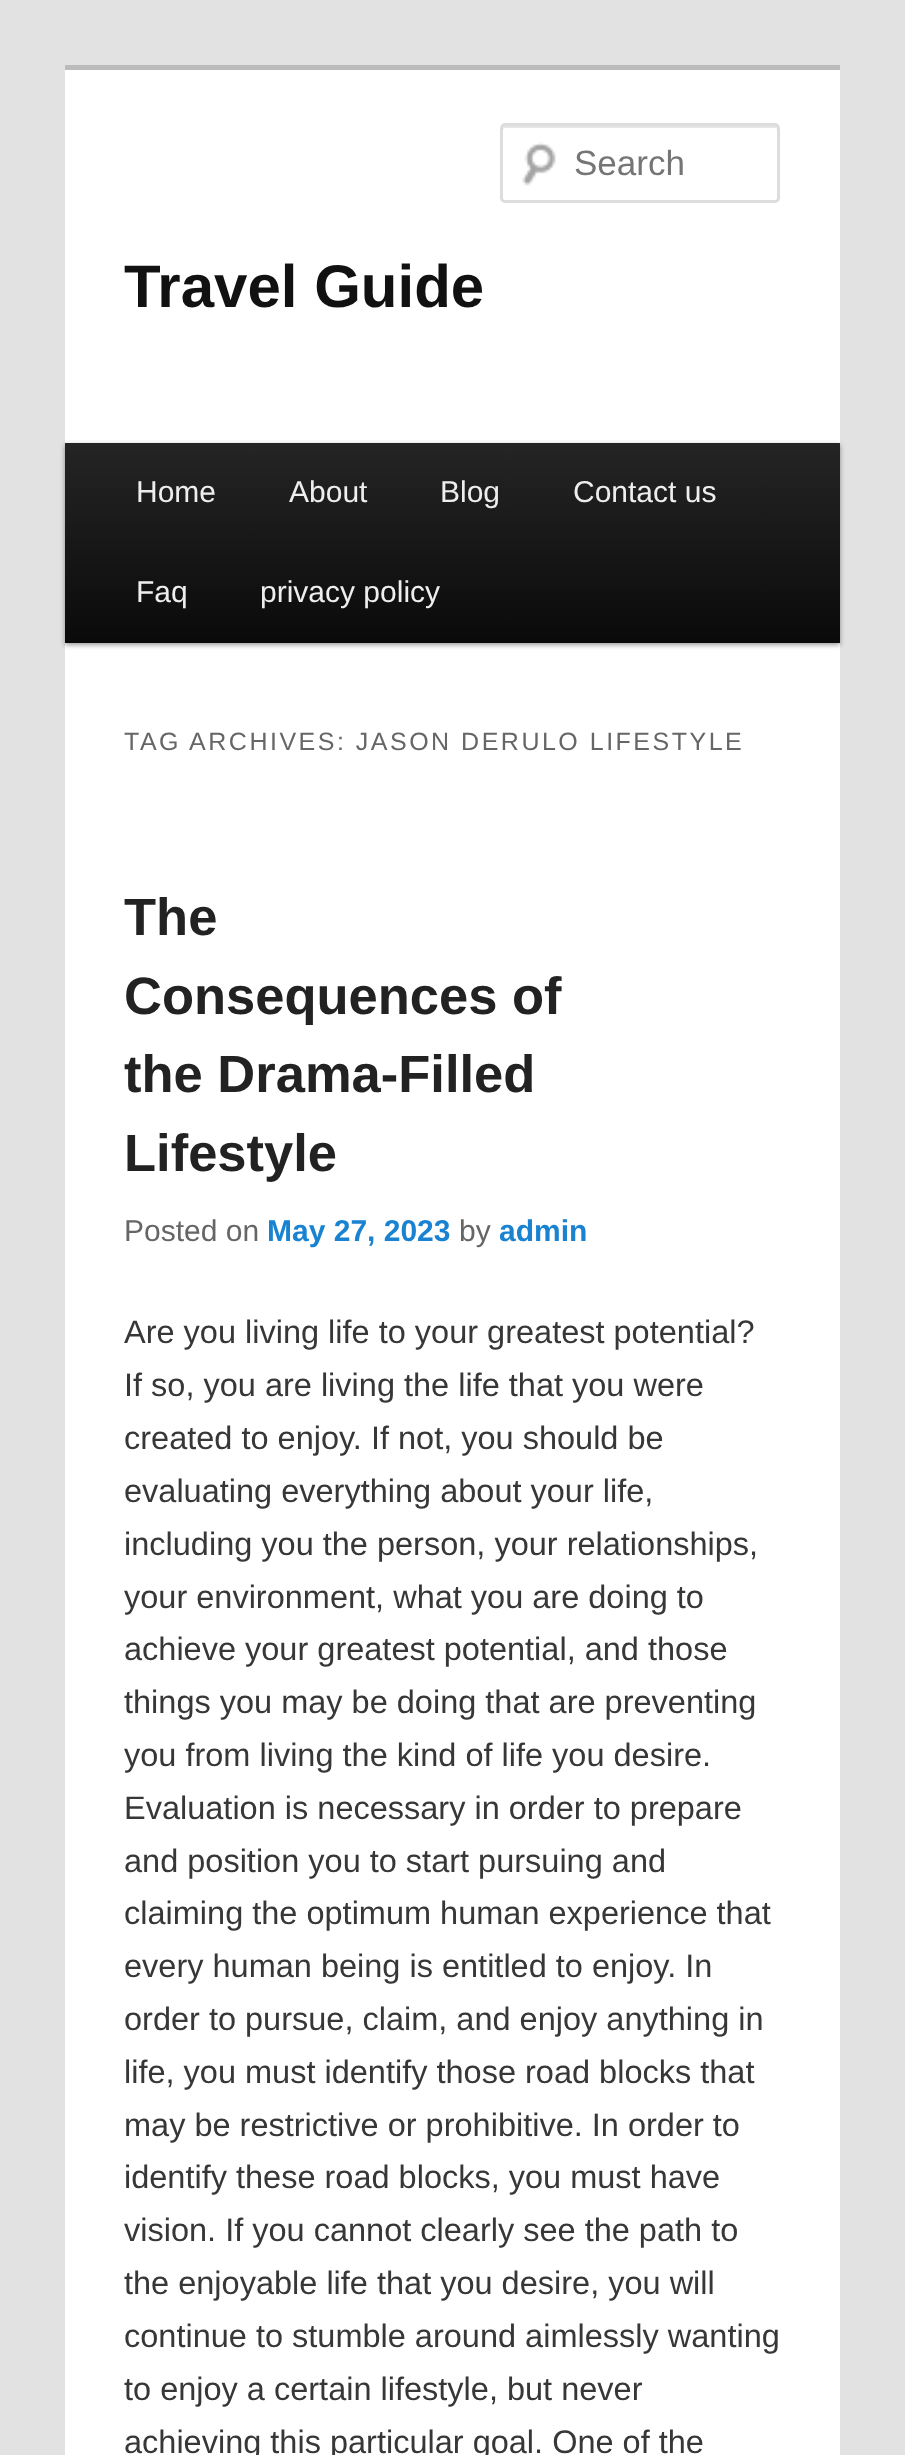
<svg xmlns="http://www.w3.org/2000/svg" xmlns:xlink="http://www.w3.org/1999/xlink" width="905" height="2455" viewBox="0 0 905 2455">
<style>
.cls-1{font:35px Liberation Sans;fill:#757575}
.cls-2{font:bold 60px Liberation Sans;fill:#111111}
.cls-3{font:30px Liberation Sans;fill:#eeeeee}
.cls-4{font:25px Liberation Sans;letter-spacing:2.5px;fill:#666666}
.cls-5{font:bold 52.5px Liberation Sans;fill:#222222}
.cls-6{font:30px Liberation Sans;fill:#666666}
.cls-7{font:bold 30px Liberation Sans;fill:#1982d1}
.cls-8{font:32.5px Liberation Sans;fill:#373737}
</style>
<defs>
<linearGradient id="g1" gradientUnits="userSpaceOnUse" x1="453" y1="442" x2="453" y2="643"><stop offset="0" stop-color="#252525"/><stop offset="1" stop-color="#0a0a0a"/></linearGradient>
</defs>
<rect width="100%" height="100%" fill="#e2e2e2"/>
<rect fill="#ffffff" x="65" y="70" width="775" height="2385"/>
<rect fill="#bbbbbb" x="65" y="65" width="775" height="5"/>
<image xlink:href="image0.png" x="522" y="142" width="34" height="44"/>
<path fill="#e6e6e6" d="M505 128H775C776 128 778 129 778 130C778 128 778 126 776 125H506C503 125 503 127 503 129Z"/>
<rect fill="none" stroke="#dddddd" stroke-width="3" x="501.5" y="124.5" width="277" height="77" rx="3.5"/>
<rect fill="#000000" fill-opacity="0.4" filter="blur(2.5px)" x="65" y="445" width="775" height="200"/>
<rect fill="url(#g1)" x="65" y="443" width="775" height="200"/>
<text class="cls-1" x="574" y="175">Search</text>
<text class="cls-2" x="124" y="307">Travel Guide</text>
<text class="cls-3" x="136" y="502">Home</text>
<text class="cls-3" x="289" y="502">About</text>
<text class="cls-3" x="440" y="502">Blog</text>
<text class="cls-3" x="573" y="502">Contact us</text>
<text class="cls-3" x="136" y="602">Faq</text>
<text class="cls-3" x="260" y="602">privacy policy</text>
<text class="cls-4" x="124" y="750">TAG ARCHIVES: JASON DERULO LIFESTYLE</text>
<text class="cls-5"><tspan x="124" y="935">The</tspan><tspan x="124" y="1014">Consequences of</tspan><tspan x="124" y="1092">the Drama-Filled</tspan><tspan x="124" y="1171">Lifestyle</tspan></text>
<text class="cls-6" x="124" y="1241">Posted on</text>
<text class="cls-7" x="267" y="1241">May 27, 2023</text>
<text class="cls-6" x="459" y="1241">by</text>
<text class="cls-7" x="499" y="1241">admin</text>
<text class="cls-8"><tspan x="124" y="1343">Are you living life to your greatest potential?</tspan><tspan x="124" y="1396">If so, you are living the life that you were</tspan><tspan x="124" y="1449">created to enjoy. If not, you should be</tspan><tspan x="124" y="1502">evaluating everything about your life,</tspan><tspan x="124" y="1555">including you the person, your relationships,</tspan><tspan x="124" y="1608">your environment, what you are doing to</tspan><tspan x="124" y="1660">achieve your greatest potential, and those</tspan><tspan x="124" y="1713">things you may be doing that are preventing</tspan><tspan x="124" y="1766">you from living the kind of life you desire.</tspan><tspan x="124" y="1819">Evaluation is necessary in order to prepare</tspan><tspan x="124" y="1872">and position you to start pursuing and</tspan><tspan x="124" y="1924">claiming the optimum human experience that</tspan><tspan x="124" y="1977">every human being is entitled to enjoy. In</tspan><tspan x="124" y="2030">order to pursue, claim, and enjoy anything in</tspan><tspan x="124" y="2083">life, you must identify those road blocks that</tspan><tspan x="124" y="2136">may be restrictive or prohibitive. In order to</tspan><tspan x="124" y="2188">identify these road blocks, you must have</tspan><tspan x="124" y="2241">vision. If you cannot clearly see the path to</tspan><tspan x="124" y="2294">the enjoyable life that you desire, you will</tspan><tspan x="124" y="2347">continue to stumble around aimlessly wanting</tspan><tspan x="124" y="2400">to enjoy a certain lifestyle, but never</tspan><tspan x="124" y="2453">achieving this particular goal. One of the</tspan></text>
</svg>
